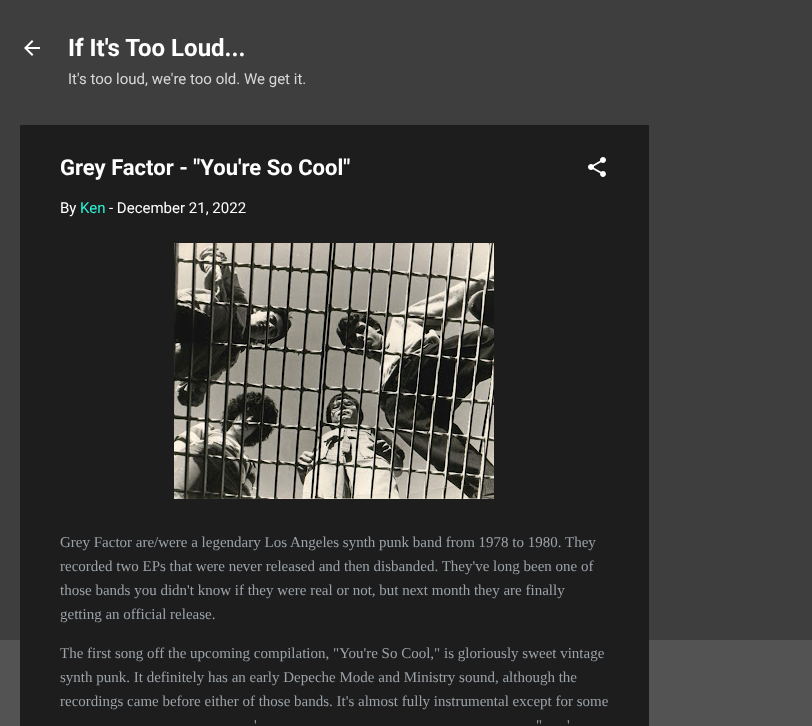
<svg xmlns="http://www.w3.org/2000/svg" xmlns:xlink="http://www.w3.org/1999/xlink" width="812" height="726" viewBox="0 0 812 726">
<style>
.cls-1{font:bold 24px Roboto;fill:#ffffff}
.cls-2{font:15px Roboto;fill:#d8d8d8}
.cls-3{font:bold 22px Roboto;fill:#ffffff}
.cls-4{font:15px Roboto;fill:#ffffff}
.cls-5{font:15px Roboto;fill:#29f3d4}
.cls-6{font:15px Liberation Serif;fill:#9ba2a8}
</style>
<rect width="100%" height="100%" fill="#535353"/>
<rect fill="#3e3e3e" x="0" y="0" width="812" height="640"/>
<image xlink:href="image0.png" x="24" y="40" width="16" height="16"/>
<rect fill="#1d1d1d" x="20" y="125" width="629" height="601"/>
<image xlink:href="image1.png" x="588" y="157" width="18" height="20"/>
<image xlink:href="image2.png" x="174" y="243" width="320" height="256"/>
<text class="cls-1" x="68" y="56">If It's Too Loud...</text>
<text class="cls-2" x="68" y="84">It's too loud, we're too old. We get it.</text>
<text class="cls-3" x="60" y="175">Grey Factor - "You're So Cool"</text>
<text class="cls-4" x="60" y="213">By</text>
<text class="cls-5" x="80" y="213">Ken</text>
<text class="cls-4" x="109" y="213">- December 21, 2022</text>
<text class="cls-6"><tspan x="60" y="547">Grey Factor are/were a legendary Los Angeles synth punk band from 1978 to 1980. They</tspan><tspan x="60" y="571">recorded two EPs that were never released and then disbanded. They've long been one of</tspan><tspan x="60" y="595">those bands you didn't know if they were real or not, but next month they are finally</tspan><tspan x="60" y="619">getting an official release.</tspan></text>
<text class="cls-6"><tspan x="60" y="658">The first song off the upcoming compilation, "You're So Cool," is gloriously sweet vintage</tspan><tspan x="60" y="682">synth punk. It definitely has an early Depeche Mode and Ministry sound, although the</tspan><tspan x="60" y="706">recordings came before either of those bands. It's almost fully instrumental except for some</tspan></text>
<text class="cls-6" x="254" y="730">'</text>
<text class="cls-6" x="536" y="730">"</text>
<text class="cls-6" x="567" y="730">'</text>
</svg>
